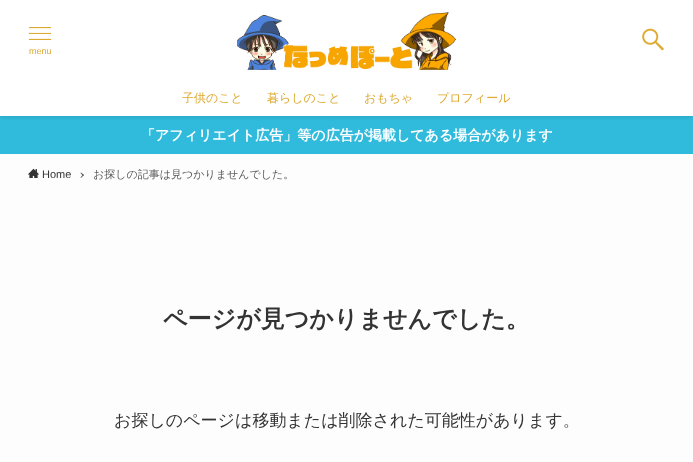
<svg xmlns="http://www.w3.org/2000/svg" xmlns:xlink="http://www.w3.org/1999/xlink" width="693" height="462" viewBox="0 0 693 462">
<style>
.cls-1{font:9px Liberation Sans;fill:#deaa31}
.cls-2{font:500 12px WenQuanYi Zen Hei;fill:#deaa31}
.cls-3{font:bold 14px WenQuanYi Zen Hei;fill:#ffffff}
.cls-4{font:11px Liberation Sans;fill:#333333}
.cls-5{font:500 11px WenQuanYi Zen Hei;fill:#5b5b5b}
.cls-6{font:bold 24px WenQuanYi Zen Hei;fill:#333333}
.cls-7{font:500 17px WenQuanYi Zen Hei;fill:#333333}
</style>
<rect width="100%" height="100%" fill="#fdfdfd"/>
<rect fill="#30bbdd" x="0" y="116" width="693" height="38"/>
<rect fill="#000000" fill-opacity="0.12" filter="blur(2px)" x="0" y="1" width="693" height="116"/>
<rect fill="#ffffff" x="0" y="0" width="693" height="116"/>
<image xlink:href="image0.png" x="237" y="12" width="219" height="58"/>
<image xlink:href="image1.png" x="642" y="28" width="22" height="23"/>
<image xlink:href="image2.png" x="28" y="27" width="24" height="13"/>
<image xlink:href="image3.png" x="28" y="168" width="11" height="10"/>
<path fill="#5b5b5b" d="M81 172.5L84 175L83 176L80.5 173Z"/>
<path fill="#5b5b5b" d="M83 174.5L84 175L81 178L80.5 177.5Z"/>
<text class="cls-1" x="29" y="54">menu</text>
<text class="cls-2" x="182" y="102">子供のこと</text>
<text class="cls-2" x="267" y="102">暮らしのこと</text>
<text class="cls-2" x="364" y="102">おもちゃ</text>
<text class="cls-2" x="437" y="102">プロフィール</text>
<text class="cls-3" x="141" y="140">「アフィリエイト広告」等の広告が掲載してある場合があります</text>
<text class="cls-4" x="42" y="178">Home</text>
<text class="cls-5" x="93" y="178">お探しの記事は見つかりませんでした。</text>
<text class="cls-6" x="163" y="327">ページが見つかりませんでした。</text>
<text class="cls-7" x="114" y="426">お探しのページは移動または削除された可能性があります。</text>
</svg>
